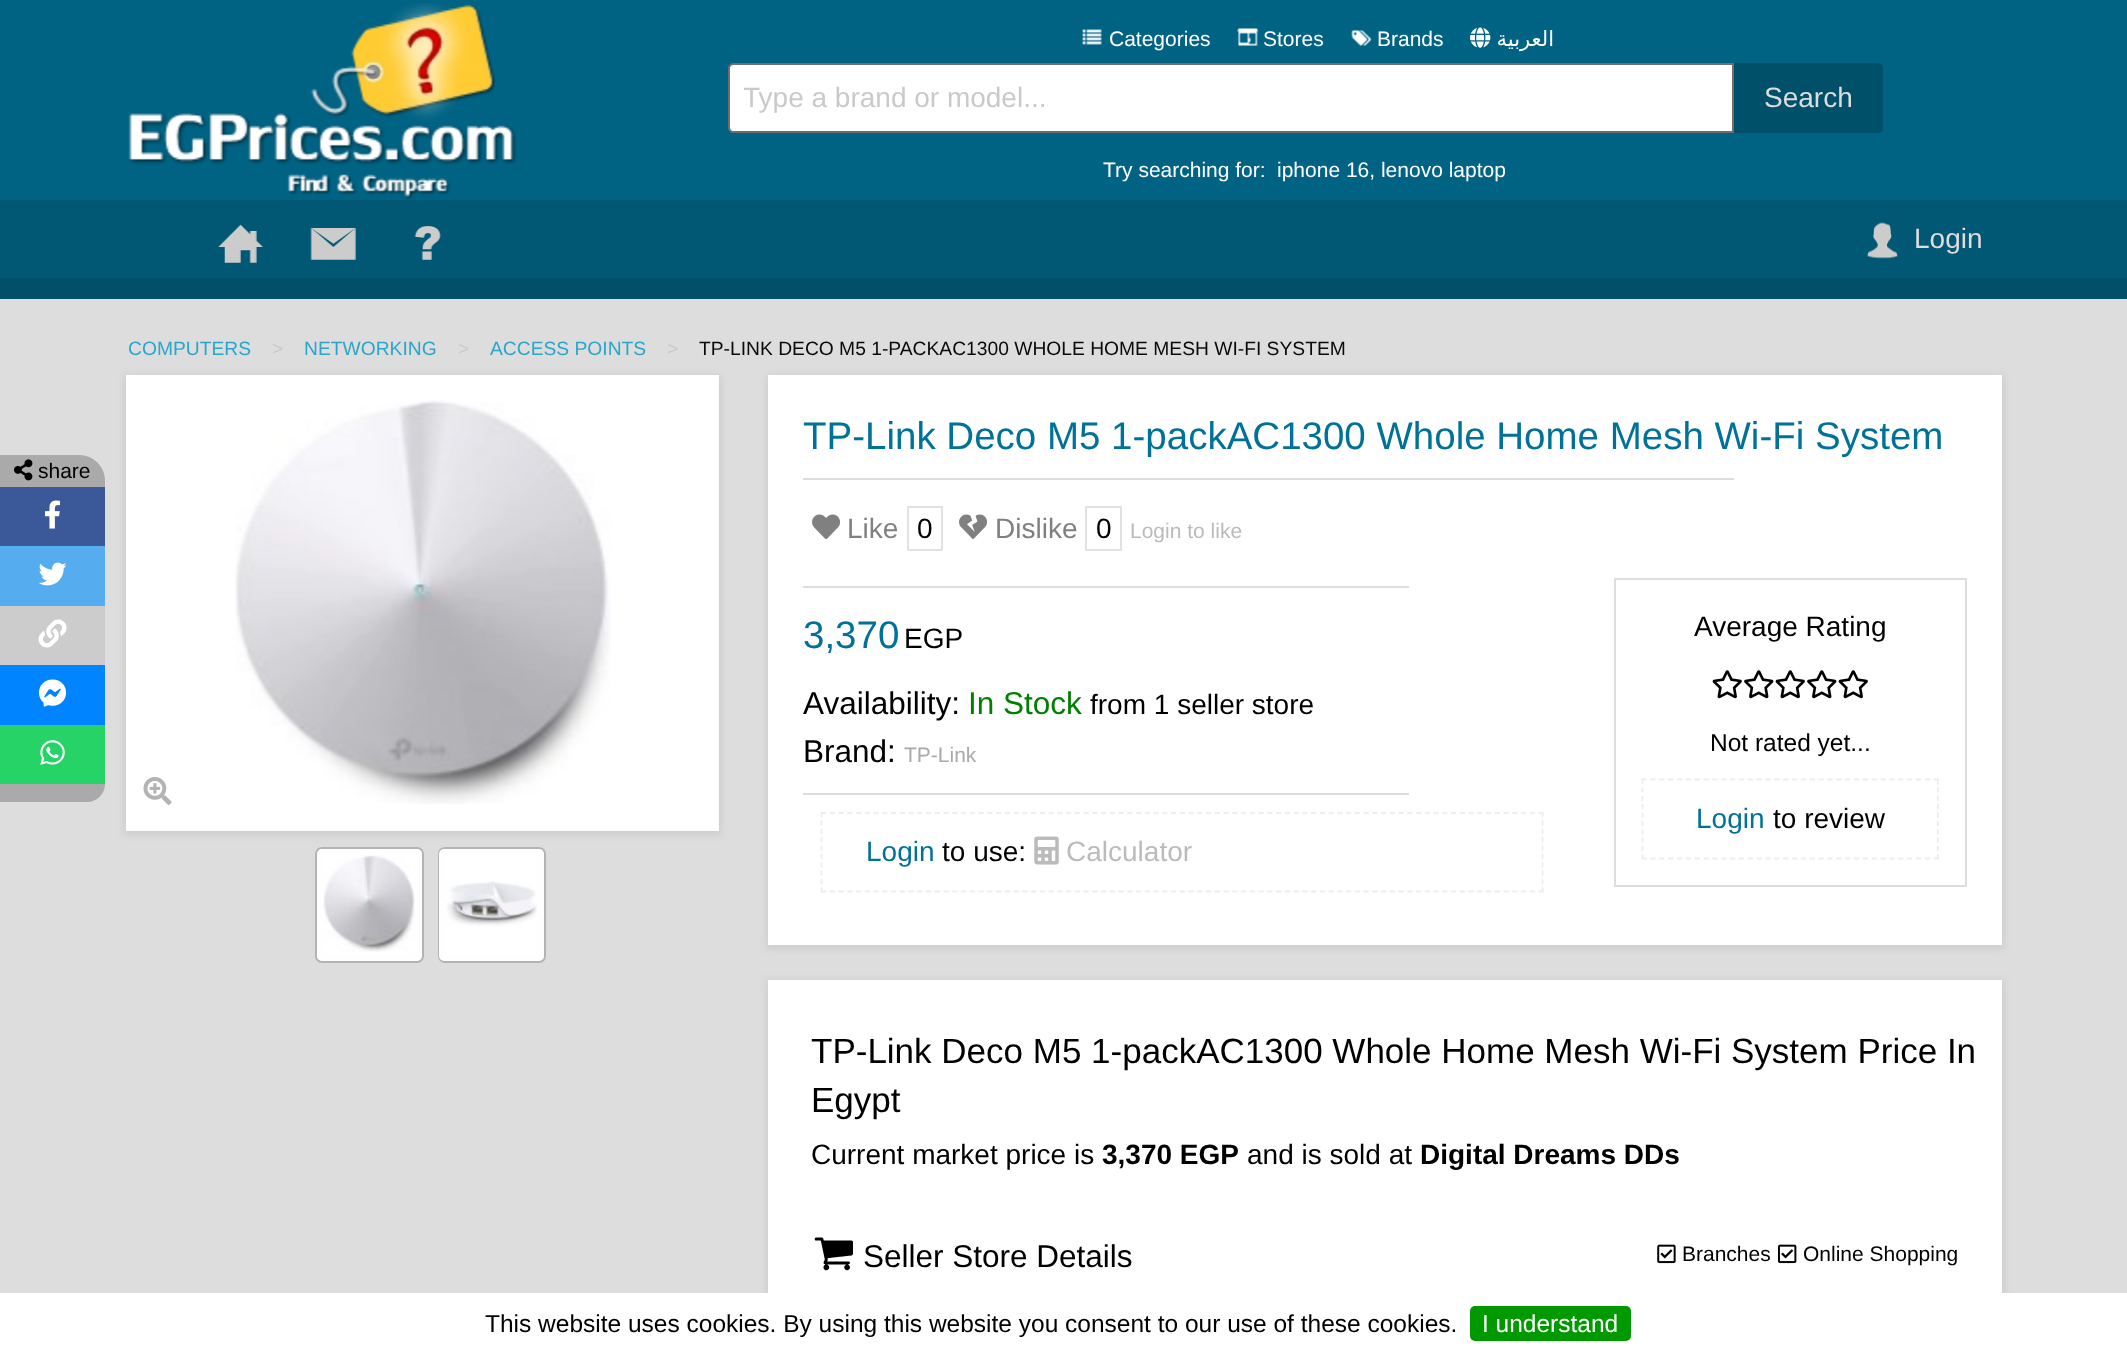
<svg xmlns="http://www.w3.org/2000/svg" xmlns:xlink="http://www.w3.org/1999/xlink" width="2127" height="1352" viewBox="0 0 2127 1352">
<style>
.cls-1{font:21px Liberation Sans;fill:#ffffff}
.cls-2{font:21px DejaVu Sans;direction:rtl;fill:#ffffff}
.cls-3{font:28px Liberation Sans;fill:#cacaca}
.cls-4{font:28px Liberation Sans;fill:#dddddd}
.cls-5{font:19.25px Liberation Sans;fill:#2ba6cb}
.cls-6{font:19.25px Liberation Sans;fill:#cacaca}
.cls-7{font:19.25px Liberation Sans;fill:#0a0a0a}
.cls-8{font:21px Liberation Sans;fill:#000000}
.cls-9{font:38.5px Liberation Sans;fill:#007298}
.cls-10{font:28px Liberation Sans;fill:#808080}
.cls-11{font:28px Liberation Sans;fill:#000000}
.cls-12{font:21px Liberation Sans;fill:#bbbbbb}
.cls-13{font:31.5px Liberation Sans;fill:#000000}
.cls-14{font:31.5px Liberation Sans;fill:#008000}
.cls-15{font:21px Liberation Sans;fill:#aaaaaa}
.cls-16{font:28px Liberation Sans;fill:#007298}
.cls-17{font:28px Liberation Sans;fill:#bbbbbb}
.cls-18{font:24.5px Liberation Sans;fill:#000000}
.cls-19{font:35px Liberation Sans;fill:#000000}
.cls-20{font:bold 28px Liberation Sans;fill:#000000}
.cls-21{font:24.5px Liberation Sans;fill:#ffffff}
</style>
<defs>
<clipPath id="clip1"><rect x="744" y="82" width="968" height="32"/></clipPath>
</defs>
<rect width="100%" height="100%" fill="#dddddd"/>
<rect fill="#006384" x="0" y="0" width="2127" height="200"/>
<image xlink:href="image0.png" x="128" y="3" width="389" height="197"/>
<image xlink:href="image1.png" x="1082" y="29" width="20" height="16"/>
<image xlink:href="image2.png" x="1237" y="28" width="22" height="18"/>
<image xlink:href="image3.png" x="1351" y="30" width="21" height="16"/>
<image xlink:href="image4.png" x="1470" y="27" width="21" height="21"/>
<path fill="#ffffff" stroke="#6e6e6e" stroke-width="2" d="M733 64H1733V132H733C731 132 729 130 729 128V68C729 66 731 64 733 64Z"/>
<path fill="#00506a" d="M1734 63H1878C1881 63 1883 65 1883 68V128C1883 131 1881 133 1878 133H1734Z"/>
<rect fill="#005875" x="0" y="200" width="2127" height="78"/>
<image xlink:href="image5.png" x="218" y="224" width="45" height="39"/>
<image xlink:href="image6.png" x="310" y="228" width="46" height="32"/>
<image xlink:href="image7.png" x="414" y="226" width="27" height="34"/>
<image xlink:href="image8.png" x="1867" y="222" width="31" height="37"/>
<rect fill="#00506a" x="0" y="278" width="2127" height="21"/>
<path fill="#aaaaaa" d="M0 455H79C93.5 455 105 466.5 105 481V487H0Z"/>
<image xlink:href="image9.png" x="14" y="459" width="19" height="22"/>
<rect fill="#3b5998" x="0" y="487" width="105" height="59"/>
<image xlink:href="image10.png" x="45" y="500" width="15" height="29"/>
<rect fill="#55acee" x="0" y="546" width="105" height="60"/>
<image xlink:href="image11.png" x="38" y="562" width="29" height="24"/>
<rect fill="#cccccc" x="0" y="606" width="105" height="59"/>
<image xlink:href="image12.png" x="38" y="619" width="29" height="29"/>
<rect fill="#0084ff" x="0" y="665" width="105" height="60"/>
<image xlink:href="image13.png" x="38" y="679" width="29" height="28"/>
<rect fill="#25d366" x="0" y="725" width="105" height="59"/>
<image xlink:href="image14.png" x="40" y="740" width="25" height="25"/>
<path fill="#aaaaaa" d="M0 784H105C105 794 97 802 87 802H0Z"/>
<rect fill="#cccccc" filter="blur(3.5px)" x="124" y="375" width="597" height="460"/>
<rect fill="#ffffff" x="126" y="375" width="593" height="456"/>
<image xlink:href="image15.png" x="143" y="777" width="29" height="28"/>
<image xlink:href="image16.png" x="235" y="400" width="376" height="404"/>
<rect fill="none" stroke="#b3b3b3" stroke-width="2" x="316" y="848" width="107" height="114" rx="6"/>
<rect fill="#ffffff" stroke="#fefefe" stroke-width="7" x="320.5" y="852.5" width="98" height="105" rx="1.5"/>
<image xlink:href="image17.png" x="323" y="855" width="92" height="97"/>
<rect fill="none" stroke="#b3b3b3" stroke-width="2" x="439" y="848" width="106" height="114" rx="6"/>
<rect fill="#ffffff" stroke="#fefefe" stroke-width="7" x="442.5" y="852.5" width="98" height="105" rx="1.5"/>
<image xlink:href="image18.png" x="446" y="881" width="91" height="45"/>
<rect fill="#cccccc" filter="blur(3.5px)" x="767" y="375" width="1237" height="574"/>
<rect fill="#ffffff" x="768" y="375" width="1234" height="570"/>
<rect fill="#dddddd" x="803" y="478" width="931" height="2"/>
<image xlink:href="image19.png" x="812" y="514" width="28" height="25"/>
<rect fill="none" stroke="#e2e2e2" stroke-width="2" x="908" y="507" width="34" height="43"/>
<image xlink:href="image20.png" x="959" y="514" width="28" height="25"/>
<rect fill="none" stroke="#e2e2e2" stroke-width="2" x="1086" y="507" width="35" height="43"/>
<rect fill="#dddddd" x="803" y="586" width="606" height="2"/>
<rect fill="#dddddd" x="803" y="793" width="606" height="2"/>
<path fill="none" stroke="#eeeeee" stroke-width="1.8" stroke-dasharray="5.25 3.5" d="M821 813H1543.5"/>
<path fill="none" stroke="#eeeeee" stroke-width="1.8" stroke-dasharray="5.25 3.12" d="M1542.5 812V892.5"/>
<path fill="none" stroke="#eeeeee" stroke-width="1.8" stroke-dasharray="5.25 3.5" d="M821 891.5H1543.5"/>
<path fill="none" stroke="#eeeeee" stroke-width="1.8" stroke-dasharray="5.25 3.12" d="M821.5 812V892.5"/>
<image xlink:href="image21.png" x="1034" y="836" width="25" height="29"/>
<rect fill="none" stroke="#dddddd" stroke-width="2" x="1615" y="579" width="351" height="307"/>
<image xlink:href="image22.png" x="1712" y="670" width="30" height="29"/>
<image xlink:href="image23.png" x="1744" y="670" width="30" height="29"/>
<image xlink:href="image22.png" x="1775" y="670" width="30" height="29"/>
<image xlink:href="image23.png" x="1807" y="670" width="30" height="29"/>
<image xlink:href="image22.png" x="1838" y="670" width="30" height="29"/>
<path fill="none" stroke="#eeeeee" stroke-width="1.8" stroke-dasharray="5.25 3.6" d="M1641.5 779.5H1939"/>
<path fill="none" stroke="#eeeeee" stroke-width="1.8" stroke-dasharray="5.25 3.12" d="M1938 779V859"/>
<path fill="none" stroke="#eeeeee" stroke-width="1.8" stroke-dasharray="5.25 3.6" d="M1641.5 858.5H1939"/>
<path fill="none" stroke="#eeeeee" stroke-width="1.8" stroke-dasharray="5.25 3.12" d="M1642.5 779V859"/>
<rect fill="#cccccc" filter="blur(3.5px)" x="767" y="980" width="1237" height="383"/>
<rect fill="#ffffff" x="768" y="980" width="1234" height="313"/>
<image xlink:href="image24.png" x="814" y="1237" width="39" height="34"/>
<image xlink:href="image25.png" x="1657" y="1244" width="19" height="20"/>
<image xlink:href="image26.png" x="1778" y="1244" width="19" height="20"/>
<rect fill="#ffffff" x="0" y="1293" width="2127" height="59"/>
<rect fill="#009900" x="1470" y="1306" width="161" height="35" rx="5"/>
<text class="cls-1" x="1109" y="46">Categories</text>
<text class="cls-1" x="1263" y="46">Stores</text>
<text class="cls-1" x="1377" y="46">Brands</text>
<text class="cls-2" x="1554" y="46">العربية</text>
<g clip-path="url(#clip1)">
<text class="cls-3" x="743" y="107">Type a brand or model...</text>
</g>
<text class="cls-4" x="1764" y="107">Search</text>
<text class="cls-1" x="1103" y="177">Try searching for:</text>
<text class="cls-1" x="1277" y="177">iphone 16, lenovo laptop</text>
<text class="cls-4" x="1914" y="248">Login</text>
<text class="cls-5" x="128" y="355">COMPUTERS</text>
<text class="cls-6" x="272" y="355">&gt;</text>
<text class="cls-5" x="304" y="355">NETWORKING</text>
<text class="cls-6" x="458" y="355">&gt;</text>
<text class="cls-5" x="490" y="355">ACCESS POINTS</text>
<text class="cls-6" x="667" y="355">&gt;</text>
<text class="cls-7" x="699" y="355">TP-LINK DECO M5 1-PACKAC1300 WHOLE HOME MESH WI-FI SYSTEM</text>
<text class="cls-8" x="38" y="478">share</text>
<text class="cls-9" x="803" y="449">TP-Link Deco M5 1-packAC1300 Whole Home Mesh Wi-Fi System</text>
<text class="cls-10" x="847" y="538">Like</text>
<text class="cls-11" x="917" y="538">0</text>
<text class="cls-10" x="995" y="538">Dislike</text>
<text class="cls-11" x="1096" y="538">0</text>
<text class="cls-12" x="1130" y="538">Login to like</text>
<text class="cls-9" x="803" y="648">3,370</text>
<text class="cls-11" x="904" y="648">EGP</text>
<text class="cls-13" x="803" y="714">Availability:</text>
<text class="cls-14" x="968" y="714">In Stock</text>
<text class="cls-11" x="1090" y="714">from 1 seller store</text>
<text class="cls-13" x="803" y="762">Brand:</text>
<text class="cls-15" x="904" y="762">TP-Link</text>
<text class="cls-16" x="866" y="861">Login</text>
<text class="cls-11" x="942" y="861">to use:</text>
<text class="cls-17" x="1066" y="861">Calculator</text>
<text class="cls-11" x="1694" y="636">Average Rating</text>
<text class="cls-18" x="1710" y="751">Not rated yet...</text>
<text class="cls-16" x="1696" y="828">Login</text>
<text class="cls-11" x="1773" y="828">to review</text>
<text class="cls-19"><tspan x="811" y="1063">TP-Link Deco M5 1-packAC1300 Whole Home Mesh Wi-Fi System Price In</tspan><tspan x="811" y="1112">Egypt</tspan></text>
<text class="cls-11" x="811" y="1164">Current market price is</text>
<text class="cls-20" x="1102" y="1164">3,370 EGP</text>
<text class="cls-11" x="1247" y="1164">and is sold at</text>
<text class="cls-20" x="1420" y="1164">Digital Dreams DDs</text>
<text class="cls-13" x="863" y="1267">Seller Store Details</text>
<text class="cls-8" x="1682" y="1261">Branches</text>
<text class="cls-8" x="1803" y="1261">Online Shopping</text>
<text class="cls-18" x="485" y="1332">This website uses cookies. By using this website you consent to our use of these cookies.</text>
<text class="cls-21" x="1482" y="1332">I understand</text>
</svg>
